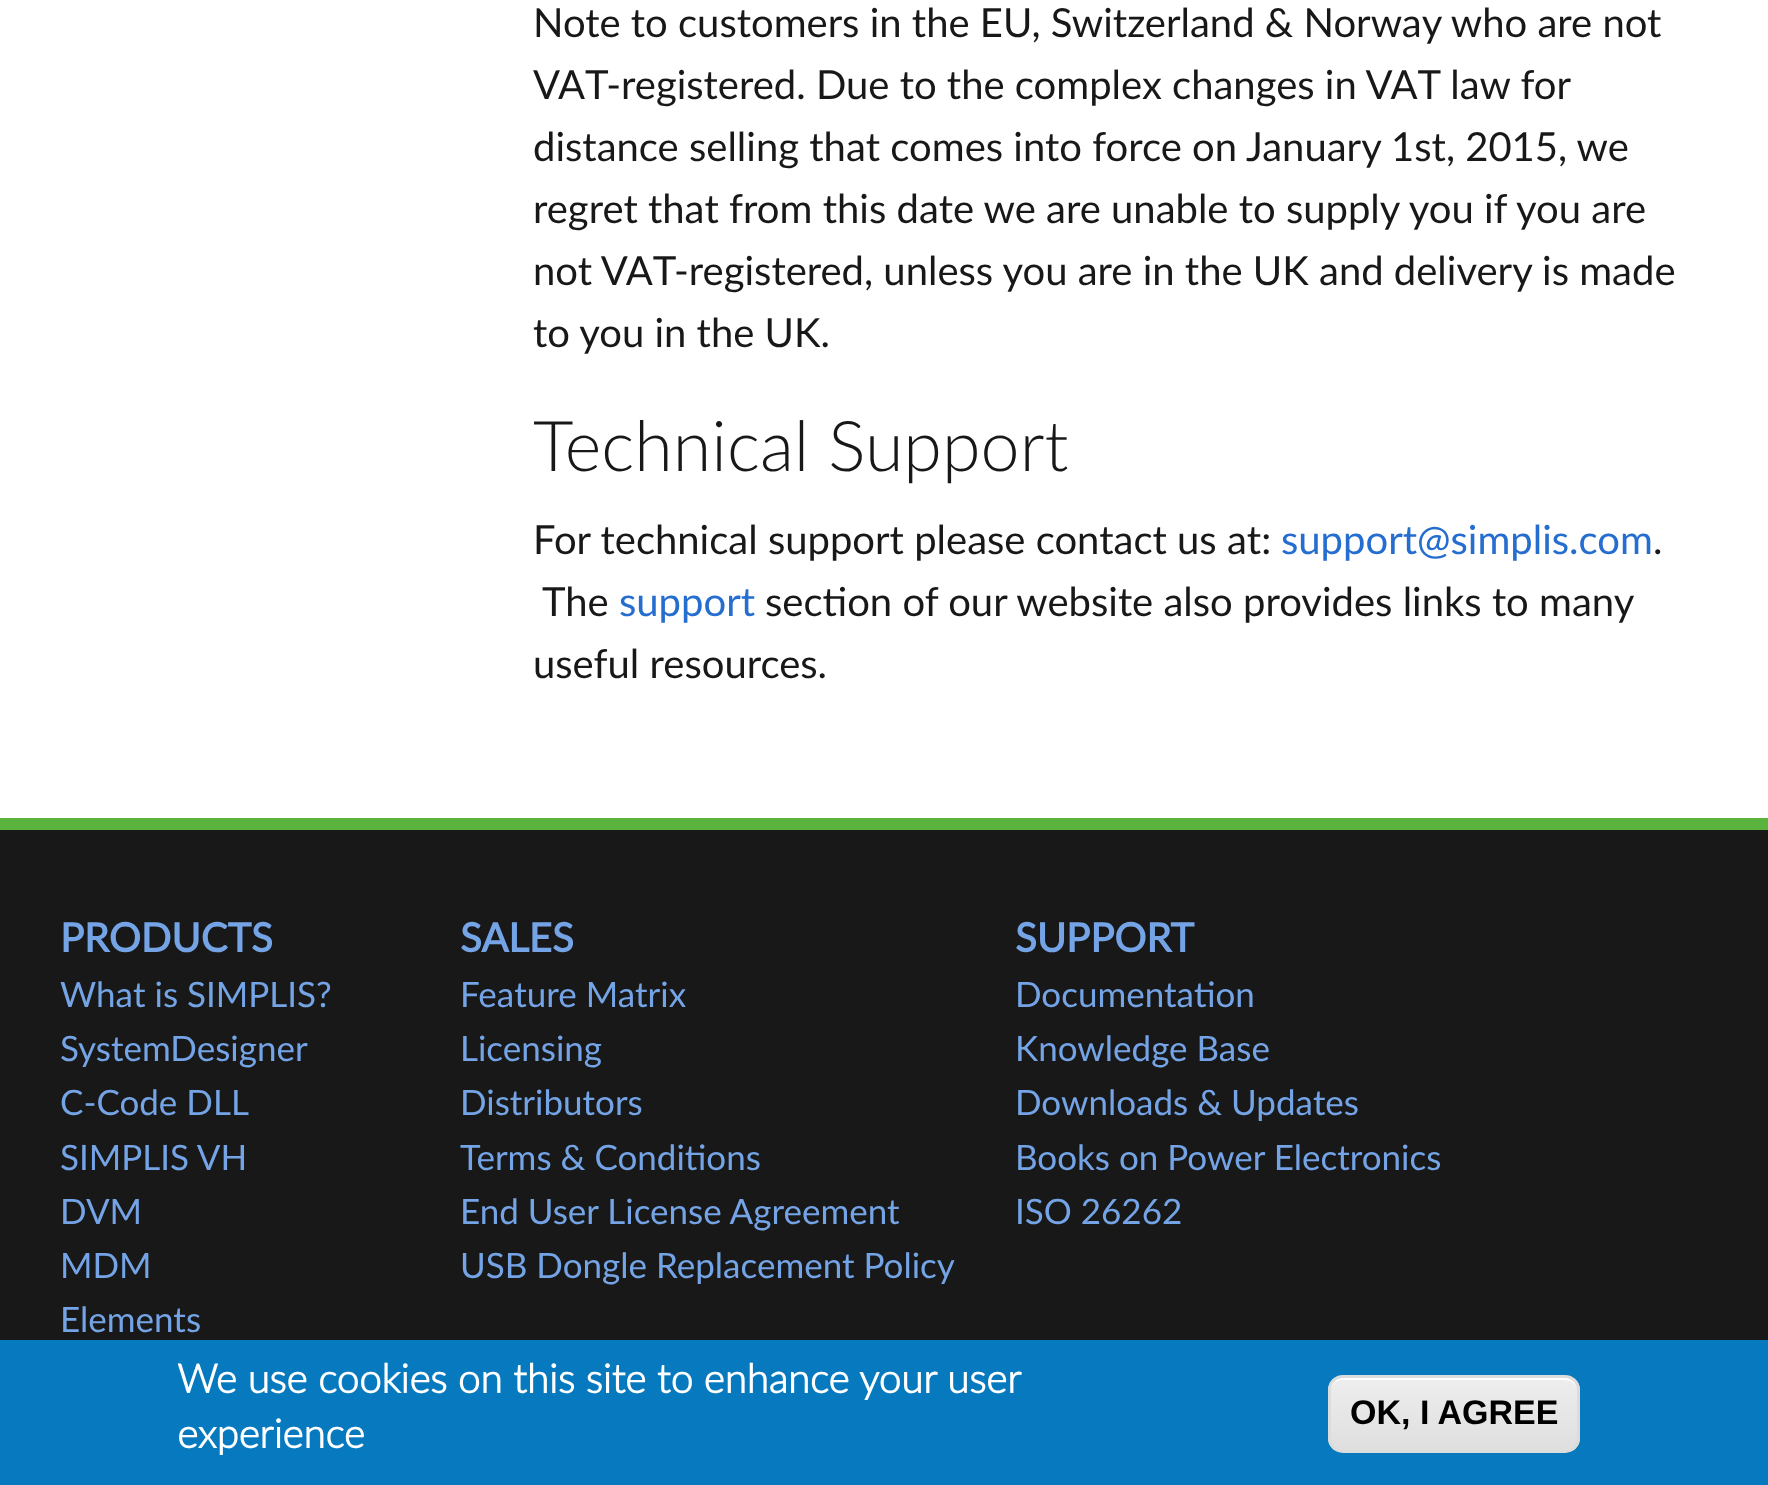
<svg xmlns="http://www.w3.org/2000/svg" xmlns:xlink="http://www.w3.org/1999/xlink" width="1768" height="1485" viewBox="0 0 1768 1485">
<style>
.cls-1{font:40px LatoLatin;fill:#181818}
.cls-2{font:300 70px LatoLatin;fill:#181818}
.cls-3{font:40px LatoLatin;fill:#256dcf}
.cls-4{font:bold 40px LatoLatin;fill:#74a4e6}
.cls-5{font:35px LatoLatin;fill:#74a4e6}
.cls-6{font:bold 40px 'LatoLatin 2';fill:#ffffff}
.cls-7{font:bold 34px Liberation Sans;fill:#000000}
</style>
<defs>
<clipPath id="clip1"><rect x="1328" y="1375" width="252" height="78" rx="15"/></clipPath>
<linearGradient id="g1" gradientUnits="userSpaceOnUse" x1="1454" y1="1378" x2="1454" y2="1450"><stop offset="0.05" stop-color="#ededed"/><stop offset="1" stop-color="#dfdfdf"/></linearGradient>
</defs>
<rect width="100%" height="100%" fill="#ffffff"/>
<rect fill="#181818" x="0" y="830" width="1768" height="510"/>
<rect fill="#59b33c" x="0" y="818" width="1768" height="12"/>
<rect fill="#0779bf" x="0" y="1340" width="1768" height="145"/>
<g clip-path="url(#clip1)">
<rect fill="url(#g1)" x="1328" y="1378" width="252" height="72"/>
</g>
<path fill="#ffffff" d="M1342 1380H1565C1572 1380 1578 1386 1578 1392V1391C1578 1384 1572 1378 1565 1378H1343C1336 1378 1330 1384 1330 1391V1392C1330 1386 1336 1380 1342 1380Z"/>
<rect fill="none" stroke="#dcdcdc" stroke-width="3" x="1329.5" y="1376.5" width="249" height="75" rx="13.5"/>
<text class="cls-1"><tspan x="533" y="37">Note to customers in the EU, Switzerland &amp; Norway who are not</tspan><tspan x="533" y="99">VAT-registered. Due to the complex changes in VAT law for</tspan><tspan x="533" y="161">distance selling that comes into force on January 1st, 2015, we</tspan><tspan x="533" y="223">regret that from this date we are unable to supply you if you are</tspan><tspan x="533" y="285">not VAT-registered, unless you are in the UK and delivery is made</tspan><tspan x="533" y="347">to you in the UK.</tspan></text>
<text class="cls-2" x="533" y="471">Technical Support</text>
<text class="cls-1" x="533" y="554">For technical support please contact us at:</text>
<text class="cls-3" x="1281" y="554">support@simplis.com</text>
<text class="cls-1" x="1653" y="554">.</text>
<text class="cls-1" x="542" y="616">The</text>
<text class="cls-3" x="619" y="616">support</text>
<text class="cls-1" x="765" y="616">section of our website also provides links to many</text>
<text class="cls-1" x="533" y="678">useful resources.</text>
<text class="cls-4" x="60" y="952">PRODUCTS</text>
<text class="cls-5"><tspan x="60" y="1007">What is SIMPLIS?</tspan><tspan x="60" y="1061">SystemDesigner</tspan><tspan x="60" y="1115">C-Code DLL</tspan><tspan x="60" y="1170">SIMPLIS VH</tspan><tspan x="60" y="1224">DVM</tspan><tspan x="60" y="1278">MDM</tspan><tspan x="60" y="1332">Elements</tspan></text>
<text class="cls-4" x="460" y="952">SALES</text>
<text class="cls-5"><tspan x="460" y="1007">Feature Matrix</tspan><tspan x="460" y="1061">Licensing</tspan><tspan x="460" y="1115">Distributors</tspan><tspan x="460" y="1170">Terms &amp; Conditions</tspan><tspan x="460" y="1224">End User License Agreement</tspan><tspan x="460" y="1278">USB Dongle Replacement Policy</tspan></text>
<text class="cls-4" x="1015" y="952">SUPPORT</text>
<text class="cls-5"><tspan x="1015" y="1007">Documentation</tspan><tspan x="1015" y="1061">Knowledge Base</tspan><tspan x="1015" y="1115">Downloads &amp; Updates</tspan><tspan x="1015" y="1170">Books on Power Electronics</tspan><tspan x="1015" y="1224">ISO 26262</tspan></text>
<text class="cls-6"><tspan x="177" y="1393">We use cookies on this site to enhance your user</tspan><tspan x="177" y="1448">experience</tspan></text>
<text class="cls-7" x="1350" y="1424">OK, I AGREE</text>
</svg>
